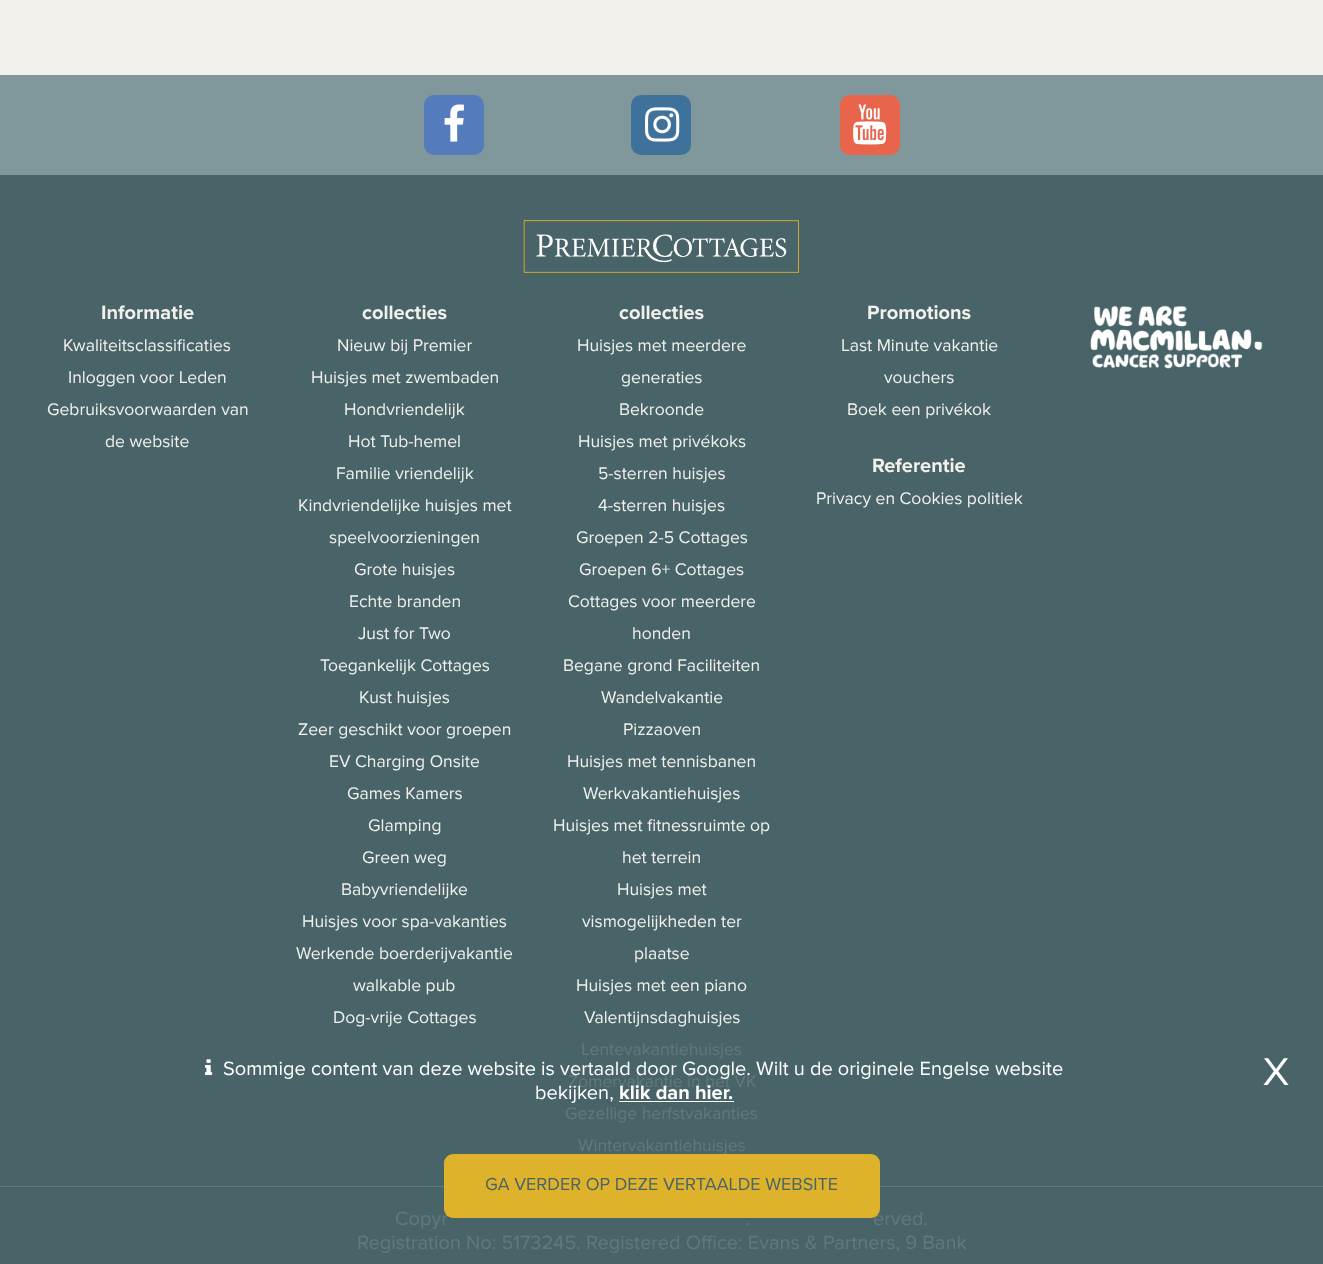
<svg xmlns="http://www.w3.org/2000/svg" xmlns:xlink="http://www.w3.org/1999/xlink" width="1323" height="1264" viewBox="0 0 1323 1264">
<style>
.cls-1{font:bold 20px Proxima Nova;fill:#f1f0eb}
.cls-2{font:17.5px Proxima Nova;fill:#f1f0eb}
.cls-3{font:17.5px Proxima Nova;fill:#62797c}
.cls-4{font:20px Proxima Nova;fill:#ffffff}
.cls-5{font:bold 20px Proxima Nova;fill:#ffffff}
.cls-6{font:40px Proxima Nova;fill:#ffffff}
.cls-7{font:20px Proxima Nova;fill:#62797c}
.cls-8{font:18px Proxima Nova;fill:#496468}
</style>
<rect width="100%" height="100%" fill="#f1f0eb"/>
<rect fill="#80989b" x="0" y="75" width="1323" height="100"/>
<rect fill="#547bbc" x="424" y="95" width="60" height="60" rx="10"/>
<image xlink:href="image0.png" x="444" y="104" width="20" height="38"/>
<rect fill="#3f729b" x="631" y="95" width="60" height="60" rx="10"/>
<image xlink:href="image1.png" x="645" y="107" width="35" height="35"/>
<rect fill="#e8644b" x="840" y="95" width="60" height="60" rx="10"/>
<image xlink:href="image2.png" x="853" y="104" width="34" height="41"/>
<rect fill="#496468" x="0" y="175" width="1323" height="1011"/>
<image xlink:href="image3.png" x="523" y="220" width="276" height="53"/>
<image xlink:href="image4.png" x="1090" y="305" width="173" height="64"/>
<image xlink:href="image5.png" x="205" y="1059" width="8" height="16"/>
<rect fill="#ffffff" x="619" y="1101" width="115" height="1"/>
<rect fill="#496468" x="0" y="1187" width="1323" height="77"/>
<rect fill="#62797c" x="0" y="1186" width="1323" height="1"/>
<text class="cls-1" x="101" y="319">Informatie</text>
<text class="cls-2" x="63" y="351">Kwaliteitsclassificaties</text>
<text class="cls-2" x="68" y="383">Inloggen voor Leden</text>
<text class="cls-2" x="47" y="415">Gebruiksvoorwaarden van</text>
<text class="cls-2" x="105" y="447">de website</text>
<text class="cls-1" x="362" y="319">collecties</text>
<text class="cls-2" x="337" y="351">Nieuw bij Premier</text>
<text class="cls-2" x="311" y="383">Huisjes met zwembaden</text>
<text class="cls-2" x="344" y="415">Hondvriendelijk</text>
<text class="cls-2" x="348" y="447">Hot Tub-hemel</text>
<text class="cls-2" x="336" y="479">Familie vriendelijk</text>
<text class="cls-2" x="298" y="511">Kindvriendelijke huisjes met</text>
<text class="cls-2" x="329" y="543">speelvoorzieningen</text>
<text class="cls-2" x="354" y="575">Grote huisjes</text>
<text class="cls-2" x="349" y="607">Echte branden</text>
<text class="cls-2" x="358" y="639">Just for Two</text>
<text class="cls-2" x="320" y="671">Toegankelijk Cottages</text>
<text class="cls-2" x="359" y="703">Kust huisjes</text>
<text class="cls-2" x="298" y="735">Zeer geschikt voor groepen</text>
<text class="cls-2" x="329" y="767">EV Charging Onsite</text>
<text class="cls-2" x="347" y="799">Games Kamers</text>
<text class="cls-2" x="368" y="831">Glamping</text>
<text class="cls-2" x="362" y="863">Green weg</text>
<text class="cls-2" x="341" y="895">Babyvriendelijke</text>
<text class="cls-2" x="302" y="927">Huisjes voor spa-vakanties</text>
<text class="cls-2" x="296" y="959">Werkende boerderijvakantie</text>
<text class="cls-2" x="353" y="991">walkable pub</text>
<text class="cls-2" x="333" y="1023">Dog-vrije Cottages</text>
<text class="cls-1" x="619" y="319">collecties</text>
<text class="cls-2" x="577" y="351">Huisjes met meerdere</text>
<text class="cls-2" x="621" y="383">generaties</text>
<text class="cls-2" x="619" y="415">Bekroonde</text>
<text class="cls-2" x="578" y="447">Huisjes met privékoks</text>
<text class="cls-2"><tspan x="598" y="479">5-sterren huisjes</tspan><tspan x="598" y="511">4-sterren huisjes</tspan></text>
<text class="cls-2" x="576" y="543">Groepen 2-5 Cottages</text>
<text class="cls-2" x="579" y="575">Groepen 6+ Cottages</text>
<text class="cls-2" x="568" y="607">Cottages voor meerdere</text>
<text class="cls-2" x="632" y="639">honden</text>
<text class="cls-2" x="563" y="671">Begane grond Faciliteiten</text>
<text class="cls-2" x="601" y="703">Wandelvakantie</text>
<text class="cls-2" x="623" y="735">Pizzaoven</text>
<text class="cls-2" x="567" y="767">Huisjes met tennisbanen</text>
<text class="cls-2" x="583" y="799">Werkvakantiehuisjes</text>
<text class="cls-2" x="553" y="831">Huisjes met fitnessruimte op</text>
<text class="cls-2" x="622" y="863">het terrein</text>
<text class="cls-2" x="617" y="895">Huisjes met</text>
<text class="cls-2" x="582" y="927">vismogelijkheden ter</text>
<text class="cls-2" x="634" y="959">plaatse</text>
<text class="cls-2" x="576" y="991">Huisjes met een piano</text>
<text class="cls-2" x="584" y="1023">Valentijnsdaghuisjes</text>
<text class="cls-3" x="581" y="1055">Lentevakantiehuisjes</text>
<text class="cls-3" x="568" y="1087">Zomervakantie in het VK</text>
<text class="cls-3" x="565" y="1119">Gezellige herfstvakanties</text>
<text class="cls-3" x="578" y="1151">Wintervakantiehuisjes</text>
<text class="cls-1" x="867" y="319">Promotions</text>
<text class="cls-2" x="841" y="351">Last Minute vakantie</text>
<text class="cls-2" x="884" y="383">vouchers</text>
<text class="cls-2" x="847" y="415">Boek een privékok</text>
<text class="cls-1" x="872" y="472">Referentie</text>
<text class="cls-2" x="816" y="504">Privacy en Cookies politiek</text>
<text class="cls-4" x="223" y="1075">Sommige content van deze website is vertaald door Google. Wilt u de originele Engelse website</text>
<text class="cls-4" x="535" y="1099">bekijken,</text>
<text class="cls-5" x="619" y="1099">klik dan hier.</text>
<text class="cls-6" x="1263" y="1085">X</text>
<text class="cls-7" x="395" y="1225">Copyr</text>
<text class="cls-7" x="745" y="1225">.</text>
<text class="cls-7" x="873" y="1225">erved.</text>
<rect fill="#deb22a" x="444" y="1154" width="436" height="64" rx="9"/>
<text class="cls-8" x="485" y="1190">GA VERDER OP DEZE VERTAALDE WEBSITE</text>
<text class="cls-7" x="357" y="1249">Registration No: 5173245. Registered Office: Evans &amp; Partners, 9 Bank</text>
</svg>
